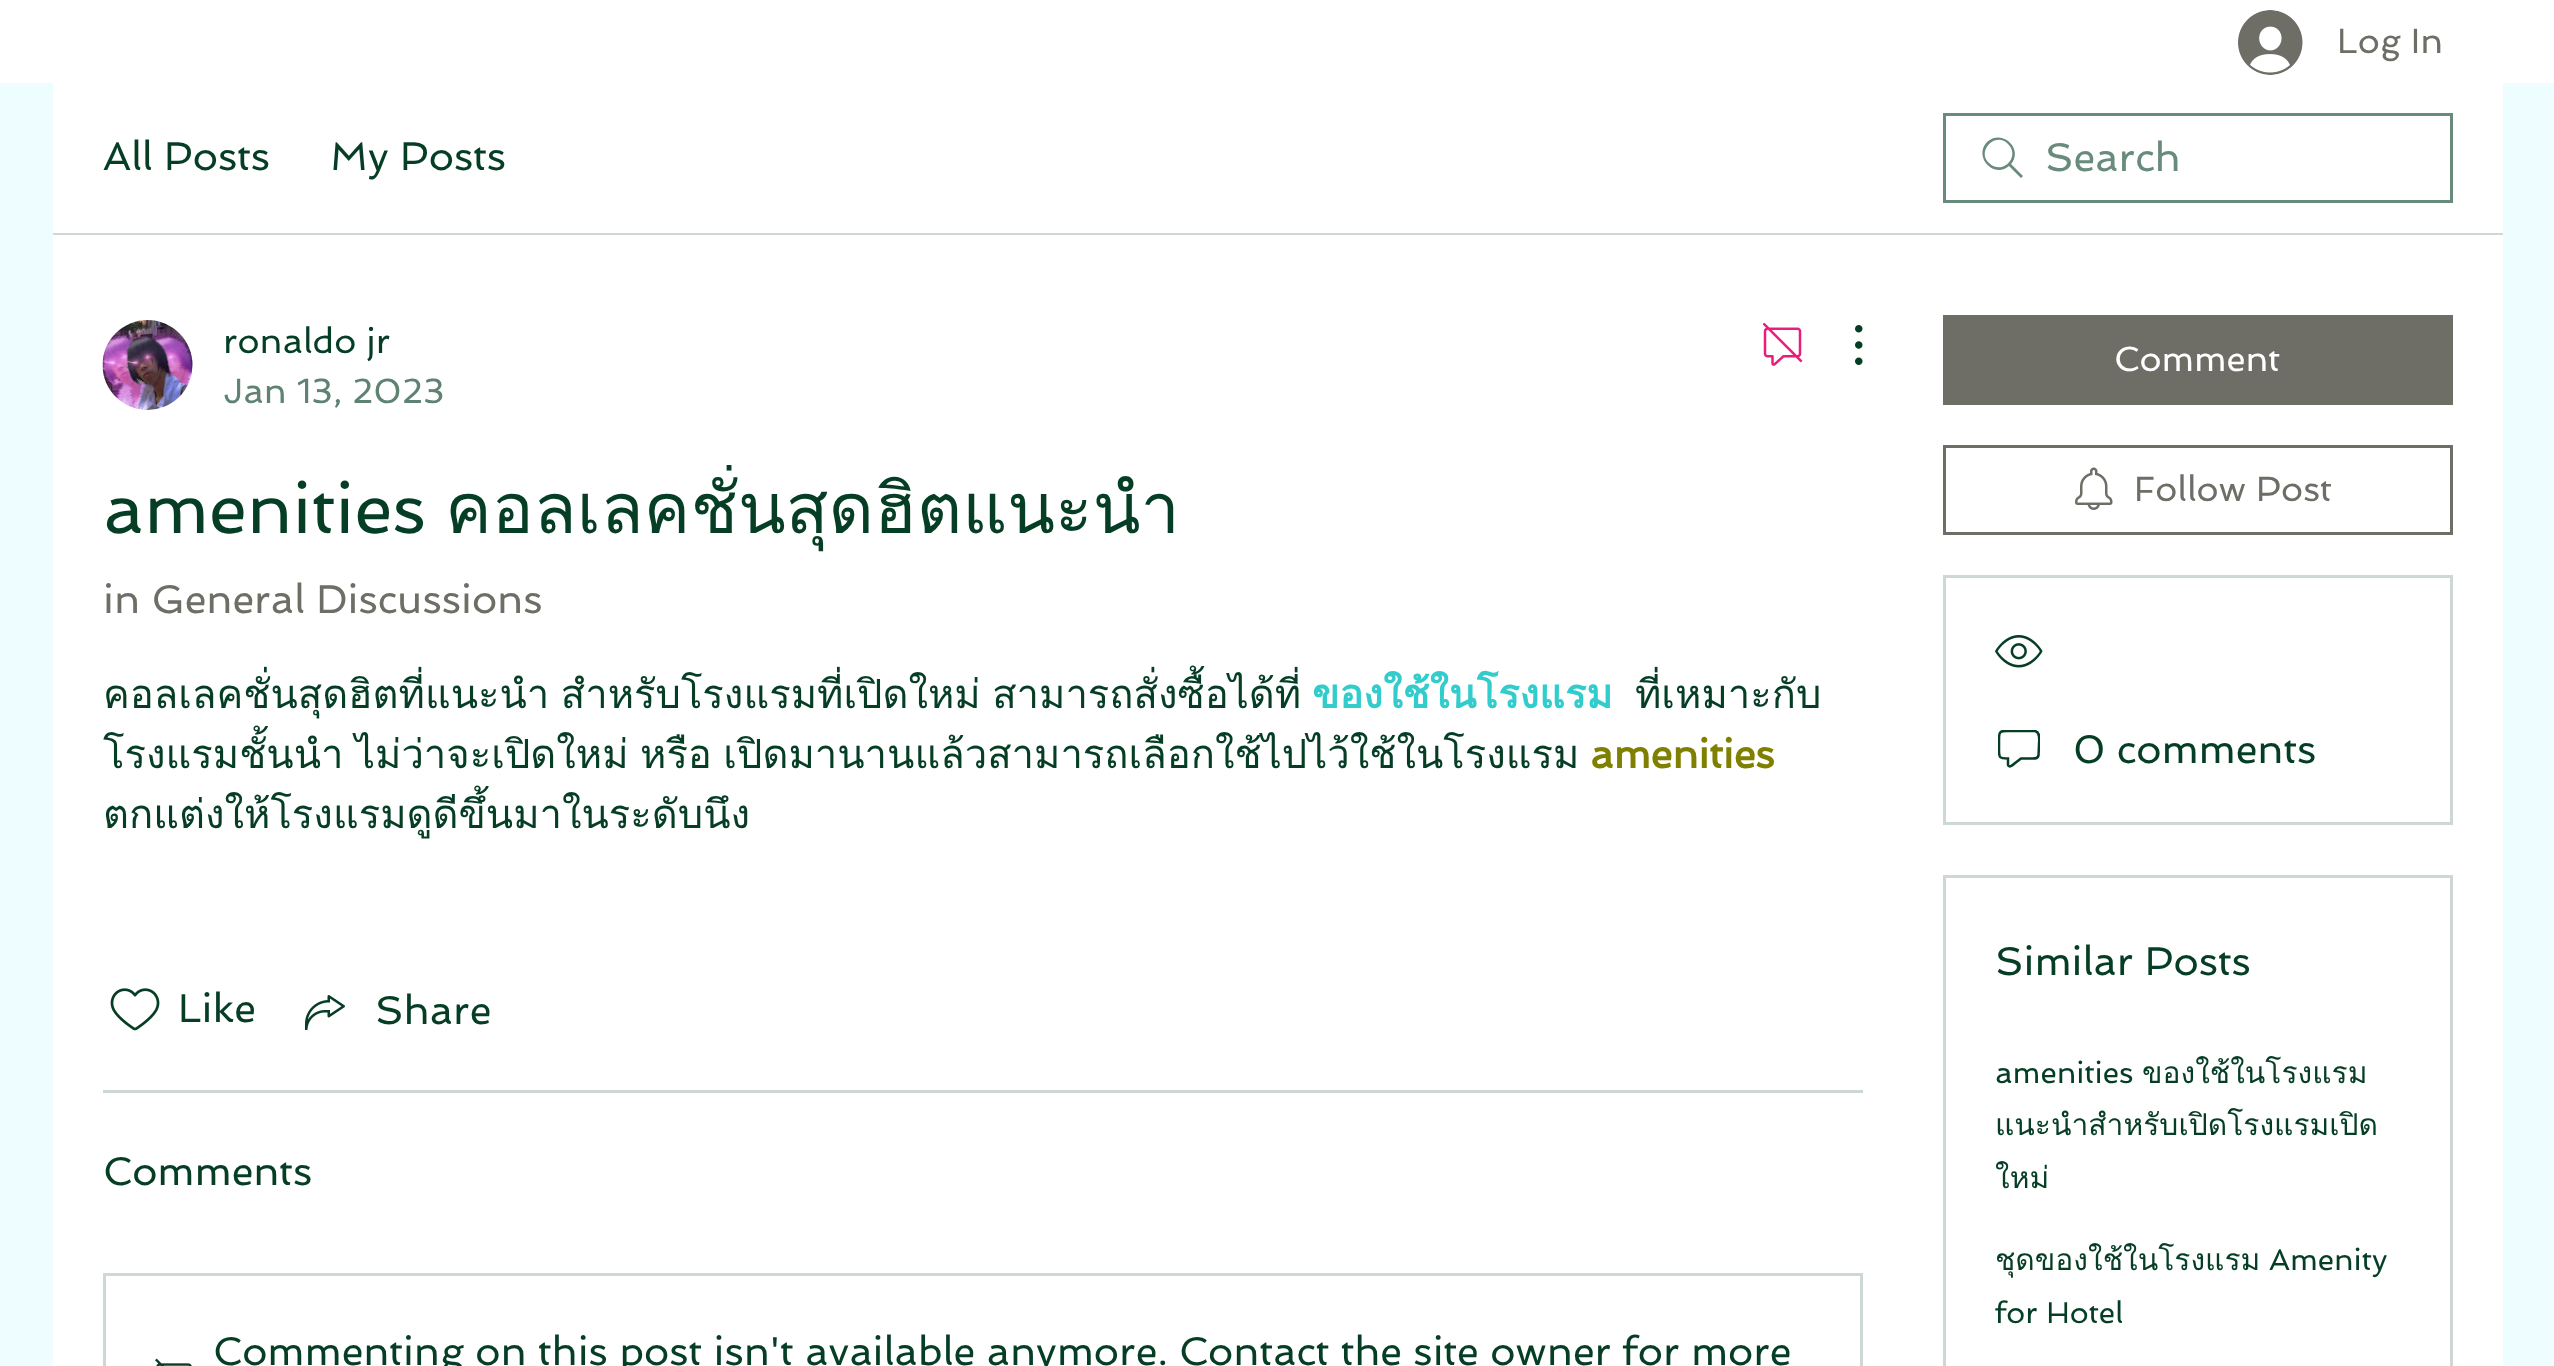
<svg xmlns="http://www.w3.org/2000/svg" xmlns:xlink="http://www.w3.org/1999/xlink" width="2554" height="1366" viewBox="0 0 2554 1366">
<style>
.cls-1{font:35px Spinnaker;fill:#6e6e67}
.cls-2{font:40px Spinnaker;fill:#053e25}
.cls-3{font:40px Spinnaker;fill:#698b7c}
.cls-4{font:35px Spinnaker;fill:#053e25}
.cls-5{font:35px Spinnaker;fill:#5f8373}
.cls-6{font:70px Spinnaker;fill:#053e25}
.cls-7{font:70px Loma;fill:#053e25}
.cls-8{font:40px Spinnaker;fill:#6e6e67}
.cls-9{font:40px Loma;fill:#053e25}
.cls-10{font:bold 40px Loma;fill:#33cccc}
.cls-11{font:bold 40px Spinnaker;fill:#808000}
.cls-12{font:35px Spinnaker;fill:#ffffff}
.cls-13{font:30px Spinnaker;fill:#053e25}
.cls-14{font:30px Loma;fill:#053e25}
</style>
<defs>
<clipPath id="clip1"><rect x="1998" y="730" width="42" height="38"/></clipPath>
<clipPath id="clip2"><rect x="103" y="465" width="1077" height="90"/></clipPath>
<clipPath id="clip3"><rect x="1995" y="1235" width="405" height="105"/></clipPath>
</defs>
<rect width="100%" height="100%" fill="#eefdff"/>
<rect fill="#ffffff" x="0" y="0" width="2554" height="83"/>
<image xlink:href="image0.png" x="2238" y="10" width="65" height="65"/>
<rect fill="#ffffff" x="53" y="83" width="2450" height="150"/>
<rect fill="#cdd8d3" x="53" y="233" width="2450" height="2"/>
<path fill="#698b7c" fill-rule="evenodd" d="M1989 163C1976 151 1996 131 2008 144C2021 157 2002 176 1989 163ZM2023 176L2011 164C2024 149 2002 128 1987 142C1973 157 1994 179 2009 166L2021 178Z"/>
<rect fill="none" stroke="#698b7c" stroke-width="3" x="1944.5" y="114.5" width="507" height="87"/>
<rect fill="#ffffff" x="53" y="235" width="2450" height="1131"/>
<image xlink:href="image1.png" x="102" y="320" width="91" height="90"/>
<image xlink:href="image2.png" x="1763" y="323" width="40" height="43"/>
<image xlink:href="image3.png" x="1855" y="325" width="8" height="40"/>
<image xlink:href="image4.png" x="110" y="988" width="50" height="43"/>
<image xlink:href="image5.png" x="305" y="995" width="40" height="35"/>
<rect fill="#cdd8d3" x="103" y="1090" width="1760" height="3"/>
<rect fill="none" stroke="#cdd8d3" stroke-width="3" x="104.5" y="1274.5" width="1757" height="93"/>
<image xlink:href="image6.png" x="155" y="1358" width="37" height="8"/>
<rect fill="#6e6e67" x="1943" y="315" width="510" height="90"/>
<rect fill="none" stroke="#6e6e67" stroke-width="3" x="1944.5" y="446.5" width="507" height="87"/>
<image xlink:href="image7.png" x="2075" y="467" width="38" height="43"/>
<rect fill="none" stroke="#cdd8d3" stroke-width="3" x="1944.5" y="576.5" width="507" height="247"/>
<image xlink:href="image8.png" x="1995" y="635" width="48" height="33"/>
<g clip-path="url(#clip1)">
<path fill="none" stroke="#053e25" stroke-width="2.5" d="M2021 758.5L2014.5 763.5C2013.5 764.5 2009 768.5 2008 765V758.5C1998.5 758.5 1999 757.5 1999 748V738.5C1999 730.5 2001 731 2008.5 731H2034.5C2041 731.5 2039 741 2039 745L2038.5 755.5C2038 759.5 2033 758.5 2030 758.5Z"/>
</g>
<rect fill="none" stroke="#cdd8d3" stroke-width="3" x="1944.5" y="876.5" width="507" height="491"/>
<text class="cls-1" x="2337" y="53">Log In</text>
<text class="cls-2" x="103" y="170">All Posts</text>
<text class="cls-2" x="330" y="170">My Posts</text>
<text class="cls-3" x="2045" y="171">Search</text>
<text class="cls-4" x="223" y="353">ronaldo jr</text>
<text class="cls-5" x="223" y="403">Jan 13, 2023</text>
<text class="cls-6" x="103" y="533">amenities</text>
<g clip-path="url(#clip2)">
<text class="cls-7" x="445" y="533">คอลเลคชั่นสุดฮิตแนะนำ</text>
</g>
<text class="cls-8" x="103" y="613">in General Discussions</text>
<text class="cls-9" x="103" y="708" word-spacing="-2">คอลเลคชั่นสุดฮิตที่แนะนำ สำหรับโรงแรมที่เปิดใหม่ สามารถสั่งซื้อได้ที่</text>
<text class="cls-10" x="1312" y="708">ของใช้ในโรงแรม</text>
<text class="cls-9" x="1635" y="708">ที่เหมาะกับ</text>
<text class="cls-9" x="103" y="768" word-spacing="-2">โรงแรมชั้นนำ ไม่ว่าจะเปิดใหม่ หรือ เปิดมานานแล้วสามารถเลือกใช้ไปไว้ใช้ในโรงแรม</text>
<text class="cls-11" x="1590" y="768">amenities</text>
<text class="cls-9" x="103" y="828">ตกแต่งให้โรงแรมดูดีขึ้นมาในระดับนึง</text>
<text class="cls-2" x="178" y="1022">Like</text>
<text class="cls-2" x="375" y="1024">Share</text>
<text class="cls-2" x="103" y="1185">Comments</text>
<text class="cls-2" x="213" y="1365">Commenting on this post isn't available anymore. Contact the site owner for more</text>
<text class="cls-12" x="2114" y="371">Comment</text>
<text class="cls-1" x="2134" y="501">Follow Post</text>
<text class="cls-2" x="2073" y="763">0 comments</text>
<text class="cls-2" x="1995" y="975">Similar Posts</text>
<text class="cls-13" x="1995" y="1083">amenities</text>
<text class="cls-14" x="2142" y="1083">ของใช้ในโรงแรม</text>
<text class="cls-14"><tspan x="1995" y="1135">แนะนำสำหรับเปิดโรงแรมเปิด</tspan><tspan x="1995" y="1188">ใหม่</tspan></text>
<g clip-path="url(#clip3)">
<text class="cls-14" x="1995" y="1270">ชุดของใช้ในโรงแรม</text>
</g>
<text class="cls-13" x="2269" y="1270">Amenity</text>
<text class="cls-13" x="1995" y="1323">for Hotel</text>
</svg>
